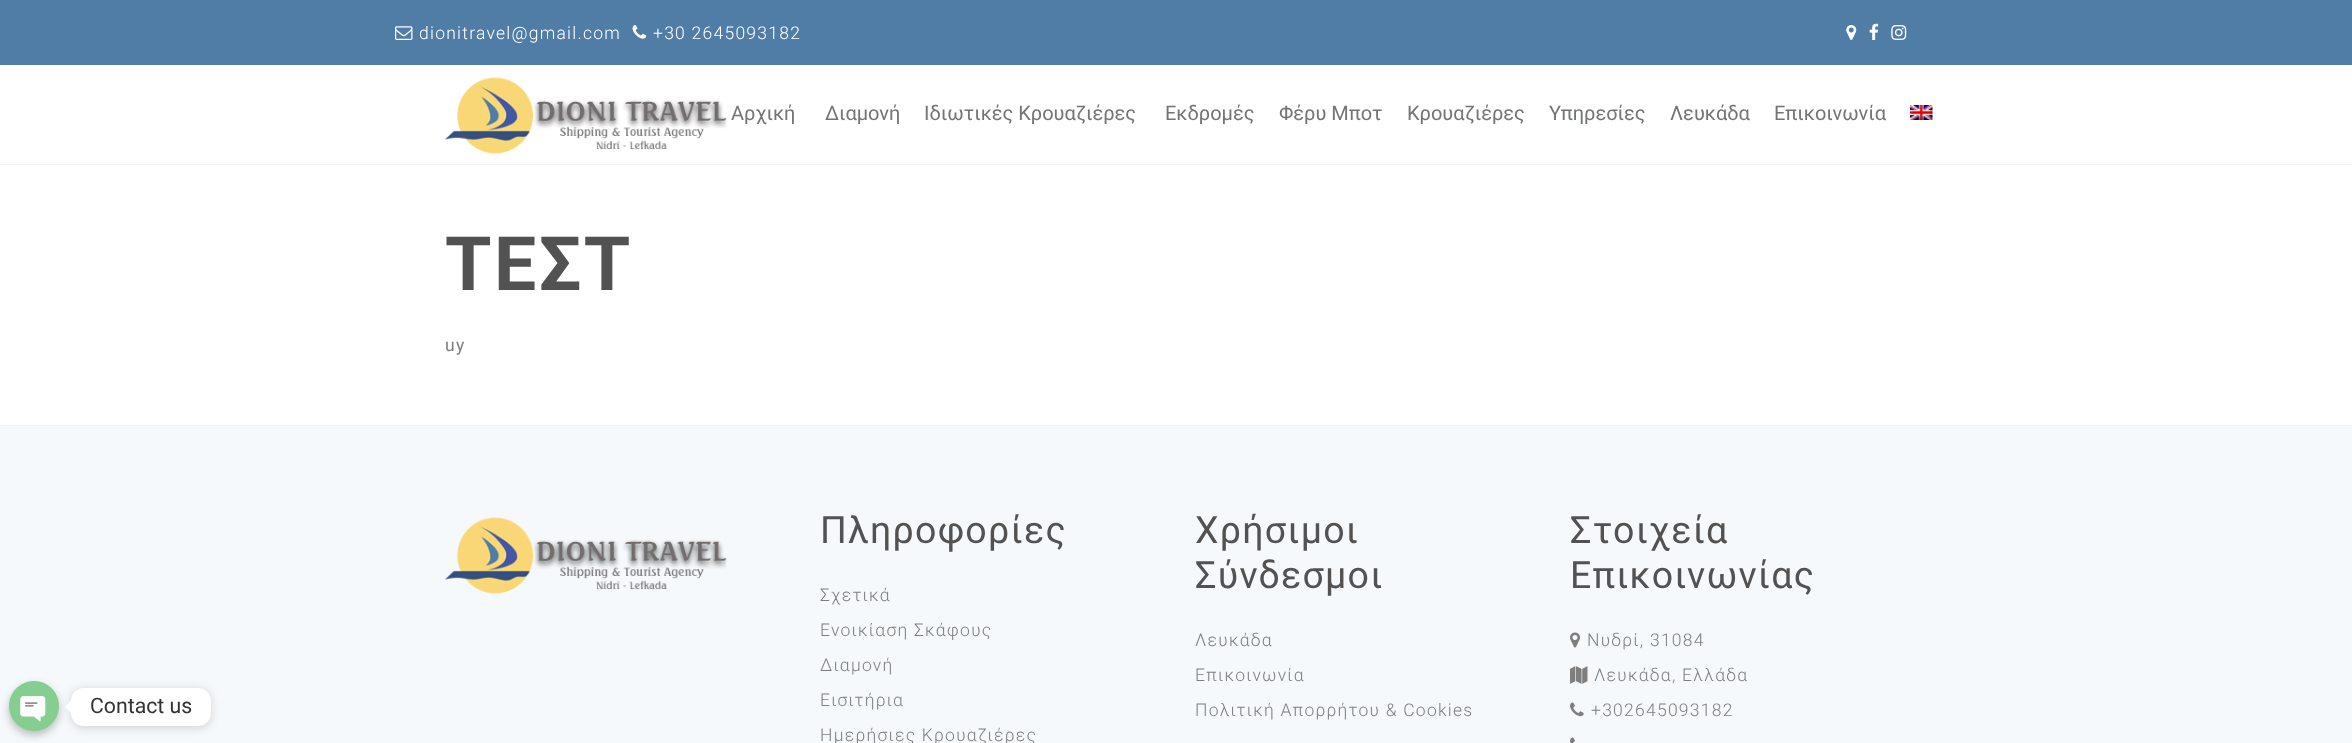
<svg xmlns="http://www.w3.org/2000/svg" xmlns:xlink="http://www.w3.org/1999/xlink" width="2352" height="743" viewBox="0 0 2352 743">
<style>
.cls-1{font:21.25px Roboto;fill:#333333}
.cls-2{font:300 17.5px Roboto;letter-spacing:1.25px;fill:#ffffff}
.cls-3{font:20px Roboto;fill:#727475}
.cls-4{font:bold 75px Roboto;letter-spacing:2.5px;fill:#525252}
.cls-5{font:17.5px Roboto;letter-spacing:1.25px;fill:#7e7e7e}
.cls-6{font:37.5px Roboto;letter-spacing:1.25px;fill:#525252}
.cls-7{font:300 17.5px Roboto;letter-spacing:1.25px;fill:#7e7e7e}
</style>
<rect width="100%" height="100%" fill="#ffffff"/>
<rect fill="#f5f9fb" x="0" y="426" width="2352" height="317"/>
<rect fill="#000000" fill-opacity="0.15" filter="blur(5px)" x="71" y="689" width="140" height="39" rx="13"/>
<rect fill="#ffffff" x="71" y="688" width="140" height="38" rx="13"/>
<path fill="#ffffff" d="M71 700.5V713L65 707Z"/>
<rect fill="#000000" fill-opacity="0.25" filter="blur(4px)" x="9" y="685" width="50" height="50" rx="25"/>
<image xlink:href="image0.png" x="9" y="681" width="50" height="50"/>
<rect fill="#507da6" x="0" y="0" width="2352" height="65"/>
<image xlink:href="image1.png" x="395" y="26" width="18" height="14"/>
<image xlink:href="image2.png" x="632" y="25" width="15" height="14"/>
<image xlink:href="image3.png" x="1846" y="25" width="11" height="15"/>
<image xlink:href="image4.png" x="1869" y="23" width="10" height="17"/>
<image xlink:href="image5.png" x="1891" y="25" width="16" height="15"/>
<rect fill="#f1f1f1" x="0" y="164" width="2352" height="1"/>
<image xlink:href="image6.png" x="445" y="77" width="282" height="77"/>
<image xlink:href="image7.png" x="1910" y="105" width="23" height="15"/>
<rect fill="#f1f1f1" x="0" y="425" width="2352" height="1"/>
<image xlink:href="image8.png" x="445" y="517" width="282" height="77"/>
<image xlink:href="image9.png" x="1570" y="632" width="10" height="16"/>
<image xlink:href="image10.png" x="1570" y="666" width="18" height="18"/>
<image xlink:href="image11.png" x="1570" y="702" width="14" height="15"/>
<image xlink:href="image12.png" x="1570" y="737" width="5" height="6"/>
<text class="cls-1" x="90" y="713">Contact us</text>
<text class="cls-2" x="419" y="39">dionitravel@gmail.com</text>
<text class="cls-2" x="653" y="39">+30 2645093182</text>
<text class="cls-3" x="731" y="120">Αρχική</text>
<text class="cls-3" x="825" y="120">Διαμονή</text>
<text class="cls-3" x="924" y="120">Ιδιωτικές Κρουαζιέρες</text>
<text class="cls-3" x="1165" y="120">Εκδρομές</text>
<text class="cls-3" x="1279" y="120">Φέρυ Μποτ</text>
<text class="cls-3" x="1407" y="120">Κρουαζιέρες</text>
<text class="cls-3" x="1549" y="120">Υπηρεσίες</text>
<text class="cls-3" x="1670" y="120">Λευκάδα</text>
<text class="cls-3" x="1774" y="120">Επικοινωνία</text>
<text class="cls-4" x="445" y="290">ΤΕΣΤ</text>
<text class="cls-5" x="445" y="351">uy</text>
<text class="cls-6" x="820" y="543">Πληροφορίες</text>
<text class="cls-7" x="820" y="601">Σχετικά</text>
<text class="cls-7" x="820" y="636">Ενοικίαση Σκάφους</text>
<text class="cls-7" x="820" y="671">Διαμονή</text>
<text class="cls-7" x="820" y="706">Εισιτήρια</text>
<text class="cls-7" x="820" y="741">Ημερήσιες Κρουαζιέρες</text>
<text class="cls-6"><tspan x="1195" y="543">Χρήσιμοι</tspan><tspan x="1195" y="588">Σύνδεσμοι</tspan></text>
<text class="cls-7" x="1195" y="646">Λευκάδα</text>
<text class="cls-7" x="1195" y="681">Επικοινωνία</text>
<text class="cls-7" x="1195" y="716">Πολιτική Απορρήτου &amp; Cookies</text>
<text class="cls-6"><tspan x="1570" y="543">Στοιχεία</tspan><tspan x="1570" y="588">Επικοινωνίας</tspan></text>
<text class="cls-7" x="1587" y="646">Νυδρί, 31084</text>
<text class="cls-7" x="1594" y="681">Λευκάδα, Ελλάδα</text>
<text class="cls-7" x="1591" y="716">+302645093182</text>
</svg>
